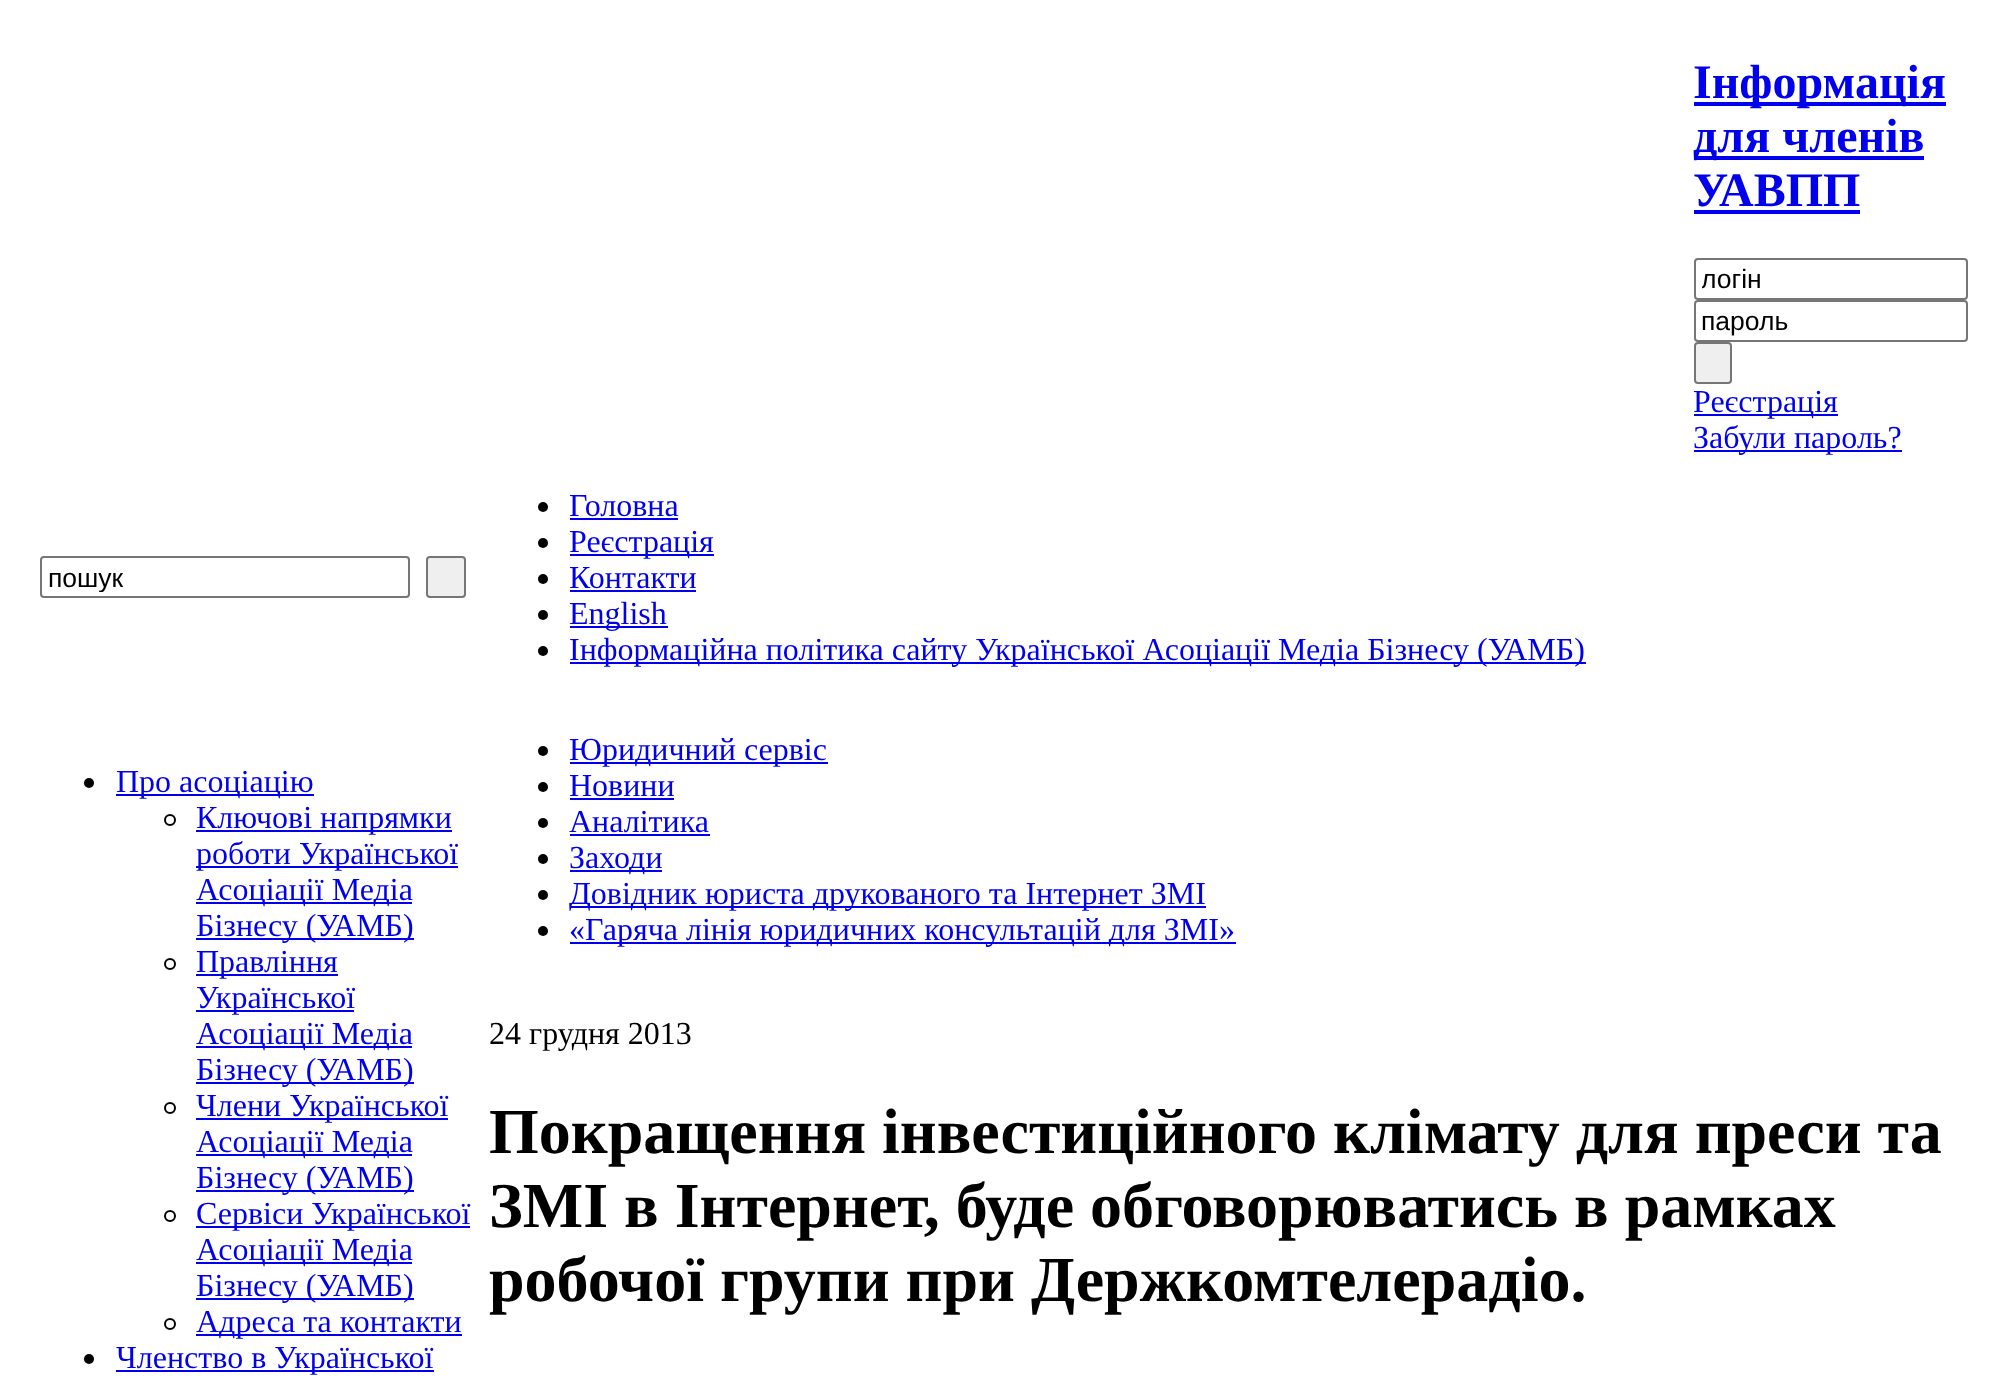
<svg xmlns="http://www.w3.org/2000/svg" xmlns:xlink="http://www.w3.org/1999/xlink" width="2003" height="1384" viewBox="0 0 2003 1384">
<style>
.cls-1{font:bold 48px Liberation Serif;fill:#0000ee}
.cls-2{font:26.5px Liberation Sans;fill:#000000}
.cls-3{font:32px Liberation Serif;fill:#0000ee}
.cls-4{font:32px Liberation Serif;fill:#000000}
.cls-5{font:bold 64px Liberation Serif;fill:#000000}
</style>
<defs>
<clipPath id="clip1"><rect x="1702" y="264" width="258" height="30"/></clipPath>
<clipPath id="clip2"><rect x="48" y="562" width="354" height="30"/></clipPath>
</defs>
<rect width="100%" height="100%" fill="#ffffff"/>
<rect fill="#0000ee" x="1694" y="102" width="252" height="4"/>
<rect fill="#0000ee" x="1694" y="156" width="230" height="4"/>
<rect fill="#0000ee" x="1694" y="210" width="166" height="4"/>
<rect fill="none" stroke="#767676" stroke-width="2" x="1695" y="259" width="272" height="40" rx="3"/>
<rect fill="none" stroke="#767676" stroke-width="2" x="1695" y="301" width="272" height="40" rx="3"/>
<rect fill="#efefef" stroke="#767676" stroke-width="2" x="1695" y="343" width="36" height="40" rx="3"/>
<rect fill="#0000ee" x="1694" y="414" width="144" height="2"/>
<rect fill="#0000ee" x="1694" y="450" width="208" height="2"/>
<rect fill="none" stroke="#767676" stroke-width="2" x="41" y="557" width="368" height="40" rx="3"/>
<rect fill="#efefef" stroke="#767676" stroke-width="2" x="427" y="557" width="38" height="40" rx="3"/>
<circle fill="#000000" cx="543" cy="507" r="5"/>
<rect fill="#0000ee" x="570" y="518" width="108" height="2"/>
<circle fill="#000000" cx="543" cy="543" r="5"/>
<rect fill="#0000ee" x="570" y="554" width="144" height="2"/>
<circle fill="#000000" cx="543" cy="579" r="5"/>
<rect fill="#0000ee" x="570" y="590" width="126" height="2"/>
<circle fill="#000000" cx="543" cy="615" r="5"/>
<rect fill="#0000ee" x="570" y="626" width="98" height="2"/>
<circle fill="#000000" cx="543" cy="651" r="5"/>
<rect fill="#0000ee" x="570" y="662" width="1016" height="2"/>
<circle fill="#000000" cx="89" cy="783" r="5"/>
<rect fill="#0000ee" x="116" y="794" width="198" height="2"/>
<circle fill="none" stroke="#000000" stroke-width="2" cx="170" cy="820" r="5"/>
<rect fill="#0000ee" x="196" y="830" width="256" height="2"/>
<rect fill="#0000ee" x="196" y="866" width="262" height="2"/>
<rect fill="#0000ee" x="196" y="902" width="216" height="2"/>
<rect fill="#0000ee" x="196" y="938" width="218" height="2"/>
<circle fill="none" stroke="#000000" stroke-width="2" cx="170" cy="964" r="5"/>
<rect fill="#0000ee" x="196" y="974" width="142" height="2"/>
<rect fill="#0000ee" x="196" y="1010" width="158" height="2"/>
<rect fill="#0000ee" x="196" y="1046" width="216" height="2"/>
<rect fill="#0000ee" x="196" y="1082" width="218" height="2"/>
<circle fill="none" stroke="#000000" stroke-width="2" cx="170" cy="1108" r="5"/>
<rect fill="#0000ee" x="196" y="1118" width="252" height="2"/>
<rect fill="#0000ee" x="196" y="1154" width="216" height="2"/>
<rect fill="#0000ee" x="196" y="1190" width="218" height="2"/>
<circle fill="none" stroke="#000000" stroke-width="2" cx="170" cy="1216" r="5"/>
<rect fill="#0000ee" x="196" y="1226" width="274" height="2"/>
<rect fill="#0000ee" x="196" y="1262" width="216" height="2"/>
<rect fill="#0000ee" x="196" y="1298" width="218" height="2"/>
<circle fill="none" stroke="#000000" stroke-width="2" cx="170" cy="1324" r="5"/>
<rect fill="#0000ee" x="196" y="1334" width="266" height="2"/>
<circle fill="#000000" cx="89" cy="1359" r="5"/>
<rect fill="#0000ee" x="116" y="1370" width="318" height="2"/>
<circle fill="#000000" cx="543" cy="751" r="5"/>
<rect fill="#0000ee" x="570" y="762" width="258" height="2"/>
<circle fill="#000000" cx="543" cy="787" r="5"/>
<rect fill="#0000ee" x="570" y="798" width="104" height="2"/>
<circle fill="#000000" cx="543" cy="823" r="5"/>
<rect fill="#0000ee" x="570" y="834" width="140" height="2"/>
<circle fill="#000000" cx="543" cy="859" r="5"/>
<rect fill="#0000ee" x="570" y="870" width="92" height="2"/>
<circle fill="#000000" cx="543" cy="895" r="5"/>
<rect fill="#0000ee" x="570" y="906" width="636" height="2"/>
<circle fill="#000000" cx="543" cy="931" r="5"/>
<rect fill="#0000ee" x="570" y="942" width="666" height="2"/>
<text class="cls-1"><tspan x="1693" y="98">Інформація</tspan><tspan x="1693" y="152">для членів</tspan><tspan x="1693" y="206">УАВПП</tspan></text>
<g clip-path="url(#clip1)">
<text class="cls-2" x="1701" y="288">логін</text>
</g>
<text class="cls-2" x="1701" y="330">пароль</text>
<text class="cls-3"><tspan x="1693" y="412">Реєстрація</tspan><tspan x="1693" y="448">Забули пароль?</tspan></text>
<g clip-path="url(#clip2)">
<text class="cls-2" x="48" y="587">пошук</text>
</g>
<text class="cls-3"><tspan x="569" y="516">Головна</tspan><tspan x="569" y="552">Реєстрація</tspan><tspan x="569" y="588">Контакти</tspan><tspan x="569" y="624">English</tspan><tspan x="569" y="660">Інформаційна політика сайту Української Асоціації Медіа Бізнесу (УАМБ)</tspan></text>
<text class="cls-3" x="116" y="792">Про асоціацію</text>
<text class="cls-3"><tspan x="196" y="828">Ключові напрямки</tspan><tspan x="196" y="864">роботи Української</tspan><tspan x="196" y="900">Асоціації Медіа</tspan><tspan x="196" y="936">Бізнесу (УАМБ)</tspan><tspan x="196" y="972">Правління</tspan><tspan x="196" y="1008">Української</tspan><tspan x="196" y="1044">Асоціації Медіа</tspan><tspan x="196" y="1080">Бізнесу (УАМБ)</tspan><tspan x="196" y="1116">Члени Української</tspan><tspan x="196" y="1152">Асоціації Медіа</tspan><tspan x="196" y="1188">Бізнесу (УАМБ)</tspan><tspan x="196" y="1224">Сервіси Української</tspan><tspan x="196" y="1260">Асоціації Медіа</tspan><tspan x="196" y="1296">Бізнесу (УАМБ)</tspan><tspan x="196" y="1332">Адреса та контакти</tspan></text>
<text class="cls-3" x="116" y="1368">Членство в Української</text>
<text class="cls-3"><tspan x="569" y="760">Юридичний сервіс</tspan><tspan x="569" y="796">Новини</tspan><tspan x="569" y="832">Аналітика</tspan><tspan x="569" y="868">Заходи</tspan><tspan x="569" y="904">Довідник юриста друкованого та Інтернет ЗМІ</tspan><tspan x="569" y="940">«Гаряча лінія юридичних консультацій для ЗМІ»</tspan></text>
<text class="cls-4" x="489" y="1044">24 грудня 2013</text>
<text class="cls-5"><tspan x="489" y="1153">Покращення інвестиційного клімату для преси та</tspan><tspan x="489" y="1227">ЗМІ в Інтернет, буде обговорюватись в рамках</tspan><tspan x="489" y="1301">робочої групи при Держкомтелерадіо.</tspan></text>
</svg>
